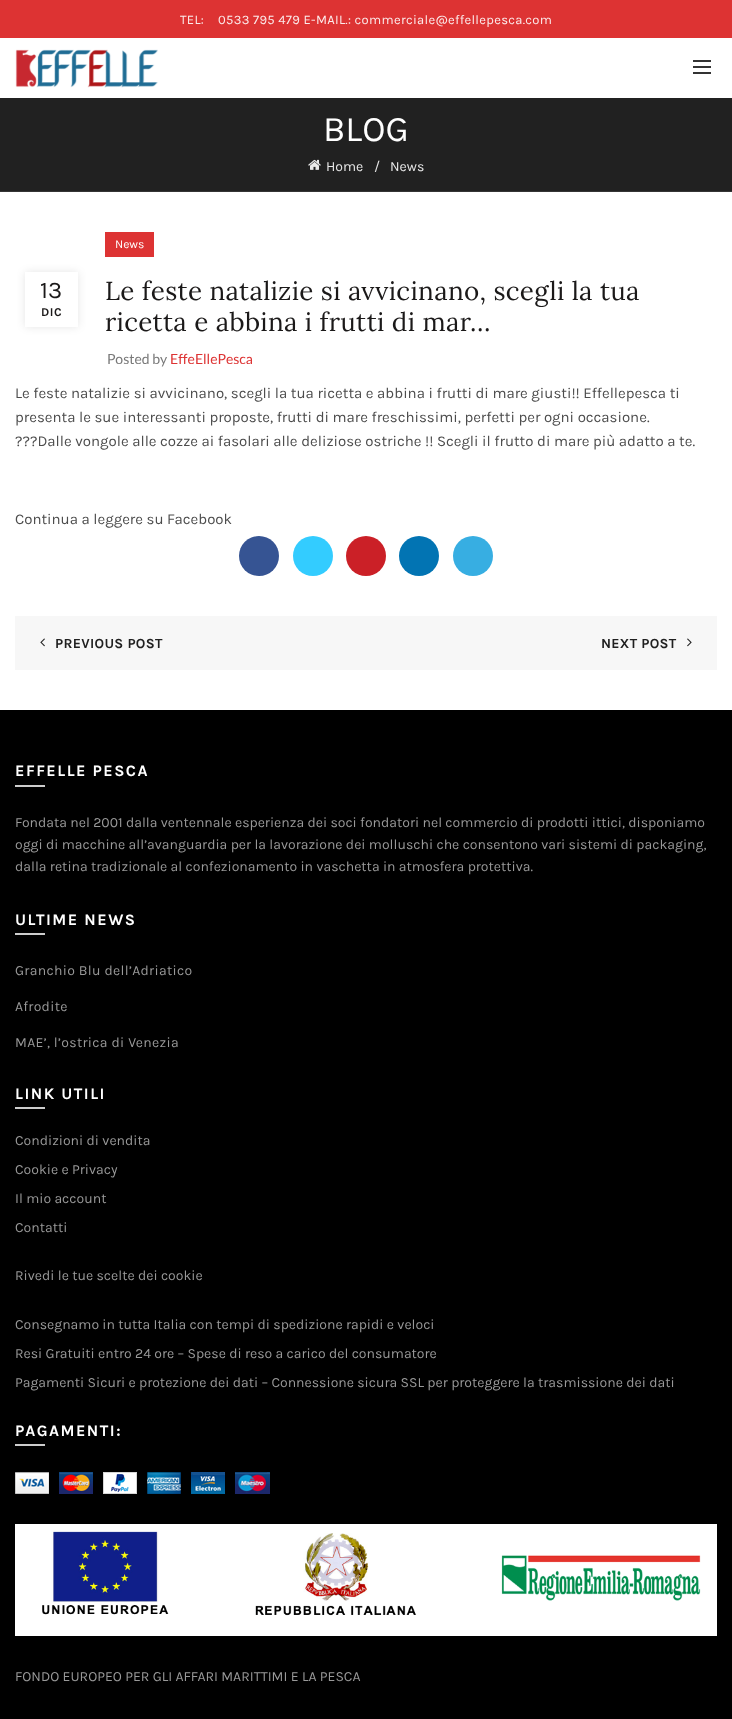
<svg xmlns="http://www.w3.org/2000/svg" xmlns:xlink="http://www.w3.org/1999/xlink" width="732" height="1719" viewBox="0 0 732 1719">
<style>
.cls-1{font:13px Karla;letter-spacing:0.3px;fill:#fcebeb}
.cls-2{font:36px Karla;fill:#ffffff}
.cls-3{font:14px Karla;fill:#e9e9e9}
.cls-4{font:24px Karla;fill:#1b1919}
.cls-5{font:bold 12px Karla;letter-spacing:0.5px;fill:#1b1919}
.cls-6{font:12px Karla;fill:#ffffff}
.cls-7{font:26px Lora;letter-spacing:0.3px;fill:#1b1919}
.cls-8{font:14px Lato;fill:#787878}
.cls-9{font:14px Lato;fill:#dd3333}
.cls-10{font:15px Karla;fill:#4c4c4c}
.cls-11{font:bold 14px Karla;letter-spacing:0.3px;fill:#202020}
.cls-12{font:bold 16px Karla;letter-spacing:1.5px;fill:#ffffff}
.cls-13{font:14px Karla;fill:#999999}
.cls-14{font:14px Karla;letter-spacing:0.3px;fill:#999999}
</style>
<defs>
<clipPath id="clip1"><path d="M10 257H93V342H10ZM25 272H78V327H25Z" clip-rule="evenodd"/></clipPath>
</defs>
<rect width="100%" height="100%" fill="#ffffff"/>
<rect fill="#dd3333" x="0" y="0" width="732" height="38"/>
<image xlink:href="image0.png" x="15" y="49" width="143" height="39"/>
<rect fill="#333333" x="693" y="66" width="18" height="2"/>
<rect fill="#333333" x="693" y="60" width="18" height="2"/>
<rect fill="#333333" x="693" y="72" width="18" height="2"/>
<rect fill="#212121" x="0" y="98" width="732" height="93"/>
<rect fill="#353535" x="0" y="191" width="732" height="1"/>
<image xlink:href="image1.png" x="308" y="159" width="13" height="11"/>
<g clip-path="url(#clip1)">
<rect fill="#000000" fill-opacity="0.1" filter="blur(4.5px)" x="25" y="272" width="53" height="55"/>
</g>
<rect fill="#dd3333" x="105" y="232" width="49" height="25"/>
<circle fill="#365493" cx="259" cy="556" r="20"/>
<circle fill="#33ccff" cx="313" cy="556" r="20"/>
<circle fill="#cb2027" cx="366" cy="556" r="20"/>
<circle fill="#0274b3" cx="419" cy="556" r="20"/>
<circle fill="#37aee2" cx="473" cy="556" r="20"/>
<rect fill="#f7f7f7" x="15" y="616" width="702" height="54"/>
<image xlink:href="image2.png" x="40" y="638" width="5" height="9"/>
<image xlink:href="image3.png" x="687" y="638" width="5" height="9"/>
<rect fill="#000000" x="0" y="710" width="732" height="1009"/>
<rect fill="#cccccc" x="15" y="785" width="30" height="2"/>
<rect fill="#cccccc" x="15" y="933" width="30" height="2"/>
<rect fill="#cccccc" x="15" y="1107" width="30" height="2"/>
<rect fill="#cccccc" x="15" y="1444" width="30" height="2"/>
<image xlink:href="image4.png" x="15" y="1472" width="255" height="22"/>
<image xlink:href="image5.png" x="15" y="1524" width="702" height="112"/>
<text class="cls-1" x="180" y="24">TEL:</text>
<text class="cls-1" x="218" y="24">0533 795 479 E-MAIL.: commerciale@effellepesca.com</text>
<text class="cls-2" x="323" y="141">BLOG</text>
<text class="cls-3" x="326" y="171">Home</text>
<text class="cls-3" x="374" y="171">/</text>
<text class="cls-3" x="390" y="171">News</text>
<text class="cls-4" x="40" y="298">13</text>
<text class="cls-5" x="41" y="316">DIC</text>
<text class="cls-6" x="115" y="248">News</text>
<text class="cls-7"><tspan x="105" y="300">Le feste natalizie si avvicinano, scegli la tua</tspan><tspan x="105" y="331">ricetta e abbina i frutti di mar…</tspan></text>
<text class="cls-8" x="107" y="364">Posted by</text>
<text class="cls-9" x="170" y="364">EffeEllePesca</text>
<text class="cls-10"><tspan x="15" y="398">Le feste natalizie si avvicinano, scegli la tua ricetta e abbina i frutti di mare giusti!! Effellepesca ti</tspan><tspan x="15" y="422">presenta le sue interessanti proposte, frutti di mare freschissimi, perfetti per ogni occasione.</tspan><tspan x="15" y="446">???Dalle vongole alle cozze ai fasolari alle deliziose ostriche !! Scegli il frutto di mare più adatto a te.</tspan></text>
<text class="cls-10" x="15" y="524">Continua a leggere su Facebook</text>
<text class="cls-11" x="55" y="648">PREVIOUS POST</text>
<text class="cls-11" x="601" y="648">NEXT POST</text>
<text class="cls-12" x="15" y="776">EFFELLE PESCA</text>
<text class="cls-13"><tspan x="15" y="827">Fondata nel 2001 dalla ventennale esperienza dei soci fondatori nel commercio di prodotti ittici, disponiamo</tspan><tspan x="15" y="849">oggi di macchine all’avanguardia per la lavorazione dei molluschi che consentono vari sistemi di packaging,</tspan><tspan x="15" y="871">dalla retina tradizionale al confezionamento in vaschetta in atmosfera protettiva.</tspan></text>
<text class="cls-12" x="15" y="925">ULTIME NEWS</text>
<text class="cls-14" x="15" y="975">Granchio Blu dell’Adriatico</text>
<text class="cls-14" x="15" y="1011">Afrodite</text>
<text class="cls-14" x="15" y="1047">MAE’, l’ostrica di Venezia</text>
<text class="cls-12" x="15" y="1099">LINK UTILI</text>
<text class="cls-13" x="15" y="1145">Condizioni di vendita</text>
<text class="cls-13" x="15" y="1174">Cookie e Privacy</text>
<text class="cls-13" x="15" y="1203">Il mio account</text>
<text class="cls-13" x="15" y="1232">Contatti</text>
<text class="cls-13" x="15" y="1280">Rivedi le tue scelte dei cookie</text>
<text class="cls-13" x="15" y="1329">Consegnamo in tutta Italia con tempi di spedizione rapidi e veloci</text>
<text class="cls-13" x="15" y="1358">Resi Gratuiti entro 24 ore – Spese di reso a carico del consumatore</text>
<text class="cls-13" x="15" y="1387">Pagamenti Sicuri e protezione dei dati – Connessione sicura SSL per proteggere la trasmissione dei dati</text>
<text class="cls-12" x="15" y="1436">PAGAMENTI:</text>
<text class="cls-13" x="15" y="1681">FONDO EUROPEO PER GLI AFFARI MARITTIMI E LA PESCA</text>
</svg>
